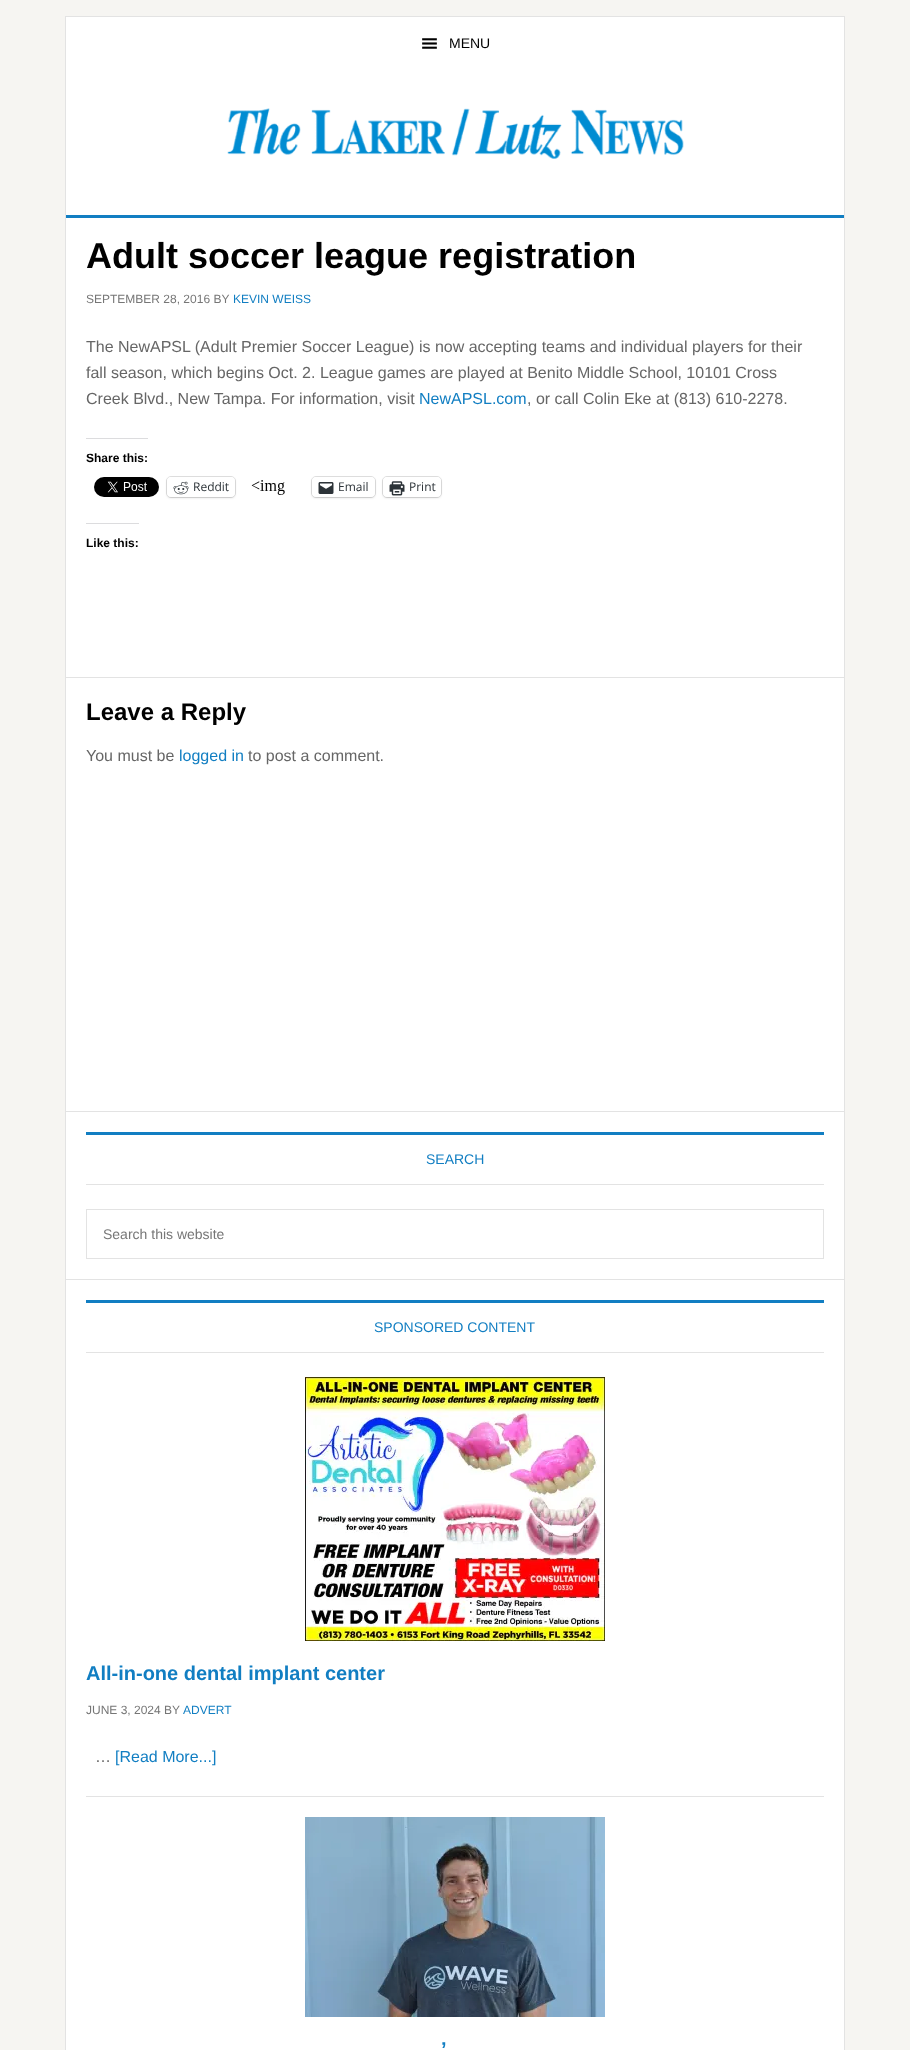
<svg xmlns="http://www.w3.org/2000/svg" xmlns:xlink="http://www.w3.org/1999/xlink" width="910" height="2050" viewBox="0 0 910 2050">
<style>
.cls-1{font:14px Liberation Sans;fill:#000000}
.cls-2{font:bold 36px Liberation Sans;fill:#000000}
.cls-3{font:12px Liberation Sans;fill:#767676}
.cls-4{font:12px Liberation Sans;fill:#117ec2}
.cls-5{font:16px Liberation Sans;fill:#666666}
.cls-6{font:16px Liberation Sans;fill:#117ec2}
.cls-7{font:bold 12px Liberation Sans;fill:#000000}
.cls-8{font:12px Open Sans;fill:#2c3338}
.cls-9{font:bold 24px Liberation Sans;fill:#000000}
.cls-10{font:14px Liberation Sans;fill:#117ec2}
.cls-11{font:14px Liberation Sans;fill:#767676}
.cls-12{font:bold 20px Liberation Sans;fill:#117ec2}
</style>
<rect width="100%" height="100%" fill="#f6f5f2"/>
<rect fill="#ffffff" stroke="#e3e3e3" x="65.5" y="16.5" width="779" height="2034"/>
<image xlink:href="image0.png" x="422" y="38" width="15" height="11"/>
<rect fill="#117ec2" x="66" y="215" width="778" height="3"/>
<image xlink:href="image1.png" x="227" y="108" width="457" height="51"/>
<rect fill="#e3e3e3" x="66" y="677" width="778" height="1"/>
<rect fill="#dcdcde" x="86" y="438" width="62" height="1"/>
<image xlink:href="image2.png" x="94" y="477" width="65" height="20"/>
<rect fill="none" stroke="#e0e0e0" x="166.5" y="476.5" width="69" height="21" rx="4.5"/>
<rect fill="#000000" fill-opacity="0.12" filter="blur(1px)" x="167" y="478" width="68" height="20" rx="4"/>
<rect fill="#ffffff" x="167" y="477" width="68" height="20" rx="4"/>
<image xlink:href="image3.png" x="173" y="481" width="16" height="14"/>
<image xlink:href="image4.png" x="251" y="480" width="34" height="15"/>
<rect fill="none" stroke="#e0e0e0" x="311.5" y="476.5" width="64" height="21" rx="4.5"/>
<rect fill="#000000" fill-opacity="0.12" filter="blur(1px)" x="312" y="478" width="63" height="20" rx="4"/>
<rect fill="#ffffff" x="312" y="477" width="63" height="20" rx="4"/>
<image xlink:href="image5.png" x="318" y="482" width="16" height="12"/>
<rect fill="none" stroke="#e0e0e0" x="382.5" y="476.5" width="59" height="21" rx="4.5"/>
<rect fill="#000000" fill-opacity="0.12" filter="blur(1px)" x="383" y="478" width="58" height="20" rx="4"/>
<rect fill="#ffffff" x="383" y="477" width="58" height="20" rx="4"/>
<image xlink:href="image6.png" x="389" y="481" width="16" height="15"/>
<rect fill="#dcdcde" x="86" y="523" width="53" height="1"/>
<rect fill="#e3e3e3" x="66" y="1111" width="778" height="1"/>
<rect fill="#e3e3e3" x="66" y="1279" width="778" height="1"/>
<rect fill="#117ec2" x="86" y="1132" width="738" height="3"/>
<rect fill="#e3e3e3" x="86" y="1184" width="738" height="1"/>
<rect fill="none" stroke="#e3e3e3" x="86.5" y="1209.5" width="737" height="49"/>
<rect fill="#117ec2" x="86" y="1300" width="738" height="3"/>
<rect fill="#e3e3e3" x="86" y="1352" width="738" height="1"/>
<rect fill="#e3e3e3" x="86" y="1796" width="738" height="1"/>
<image xlink:href="image7.png" x="305" y="1377" width="300" height="264"/>
<image xlink:href="image8.png" x="305" y="1817" width="300" height="200"/>
<text class="cls-1" x="449" y="48">MENU</text>
<text class="cls-2" x="86" y="268">Adult soccer league registration</text>
<text class="cls-3" x="86" y="303">SEPTEMBER 28, 2016 BY</text>
<text class="cls-4" x="233" y="303">KEVIN WEISS</text>
<text class="cls-5"><tspan x="86" y="352">The NewAPSL (Adult Premier Soccer League) is now accepting teams and individual players for their</tspan><tspan x="86" y="378">fall season, which begins Oct. 2. League games are played at Benito Middle School, 10101 Cross</tspan><tspan x="86" y="404">Creek Blvd., New Tampa. For information, visit</tspan></text>
<text class="cls-6" x="419" y="404">NewAPSL.com</text>
<text class="cls-5" x="527" y="404">, or call Colin Eke at (813) 610-2278.</text>
<text class="cls-7" x="86" y="462">Share this:</text>
<text class="cls-8" x="193" y="491">Reddit</text>
<text class="cls-8" x="338" y="491">Email</text>
<text class="cls-8" x="409" y="491">Print</text>
<text class="cls-7" x="86" y="547">Like this:</text>
<text class="cls-9" x="86" y="720">Leave a Reply</text>
<text class="cls-5" x="86" y="761">You must be</text>
<text class="cls-6" x="179" y="761">logged in</text>
<text class="cls-5" x="248" y="761">to post a comment.</text>
<text class="cls-10" x="426" y="1164">SEARCH</text>
<text class="cls-11" x="103" y="1239">Search this website</text>
<text class="cls-10" x="374" y="1332">SPONSORED CONTENT</text>
<text class="cls-12" x="86" y="1680">All-in-one dental implant center</text>
<text class="cls-3" x="86" y="1714">JUNE 3, 2024</text>
<text class="cls-3" x="164" y="1714">BY</text>
<text class="cls-4" x="183" y="1714">ADVERT</text>
<text class="cls-5" x="95" y="1762">…</text>
<text class="cls-6" x="115" y="1762">[Read More...]</text>
<text class="cls-12" x="441" y="2056">’</text>
</svg>
